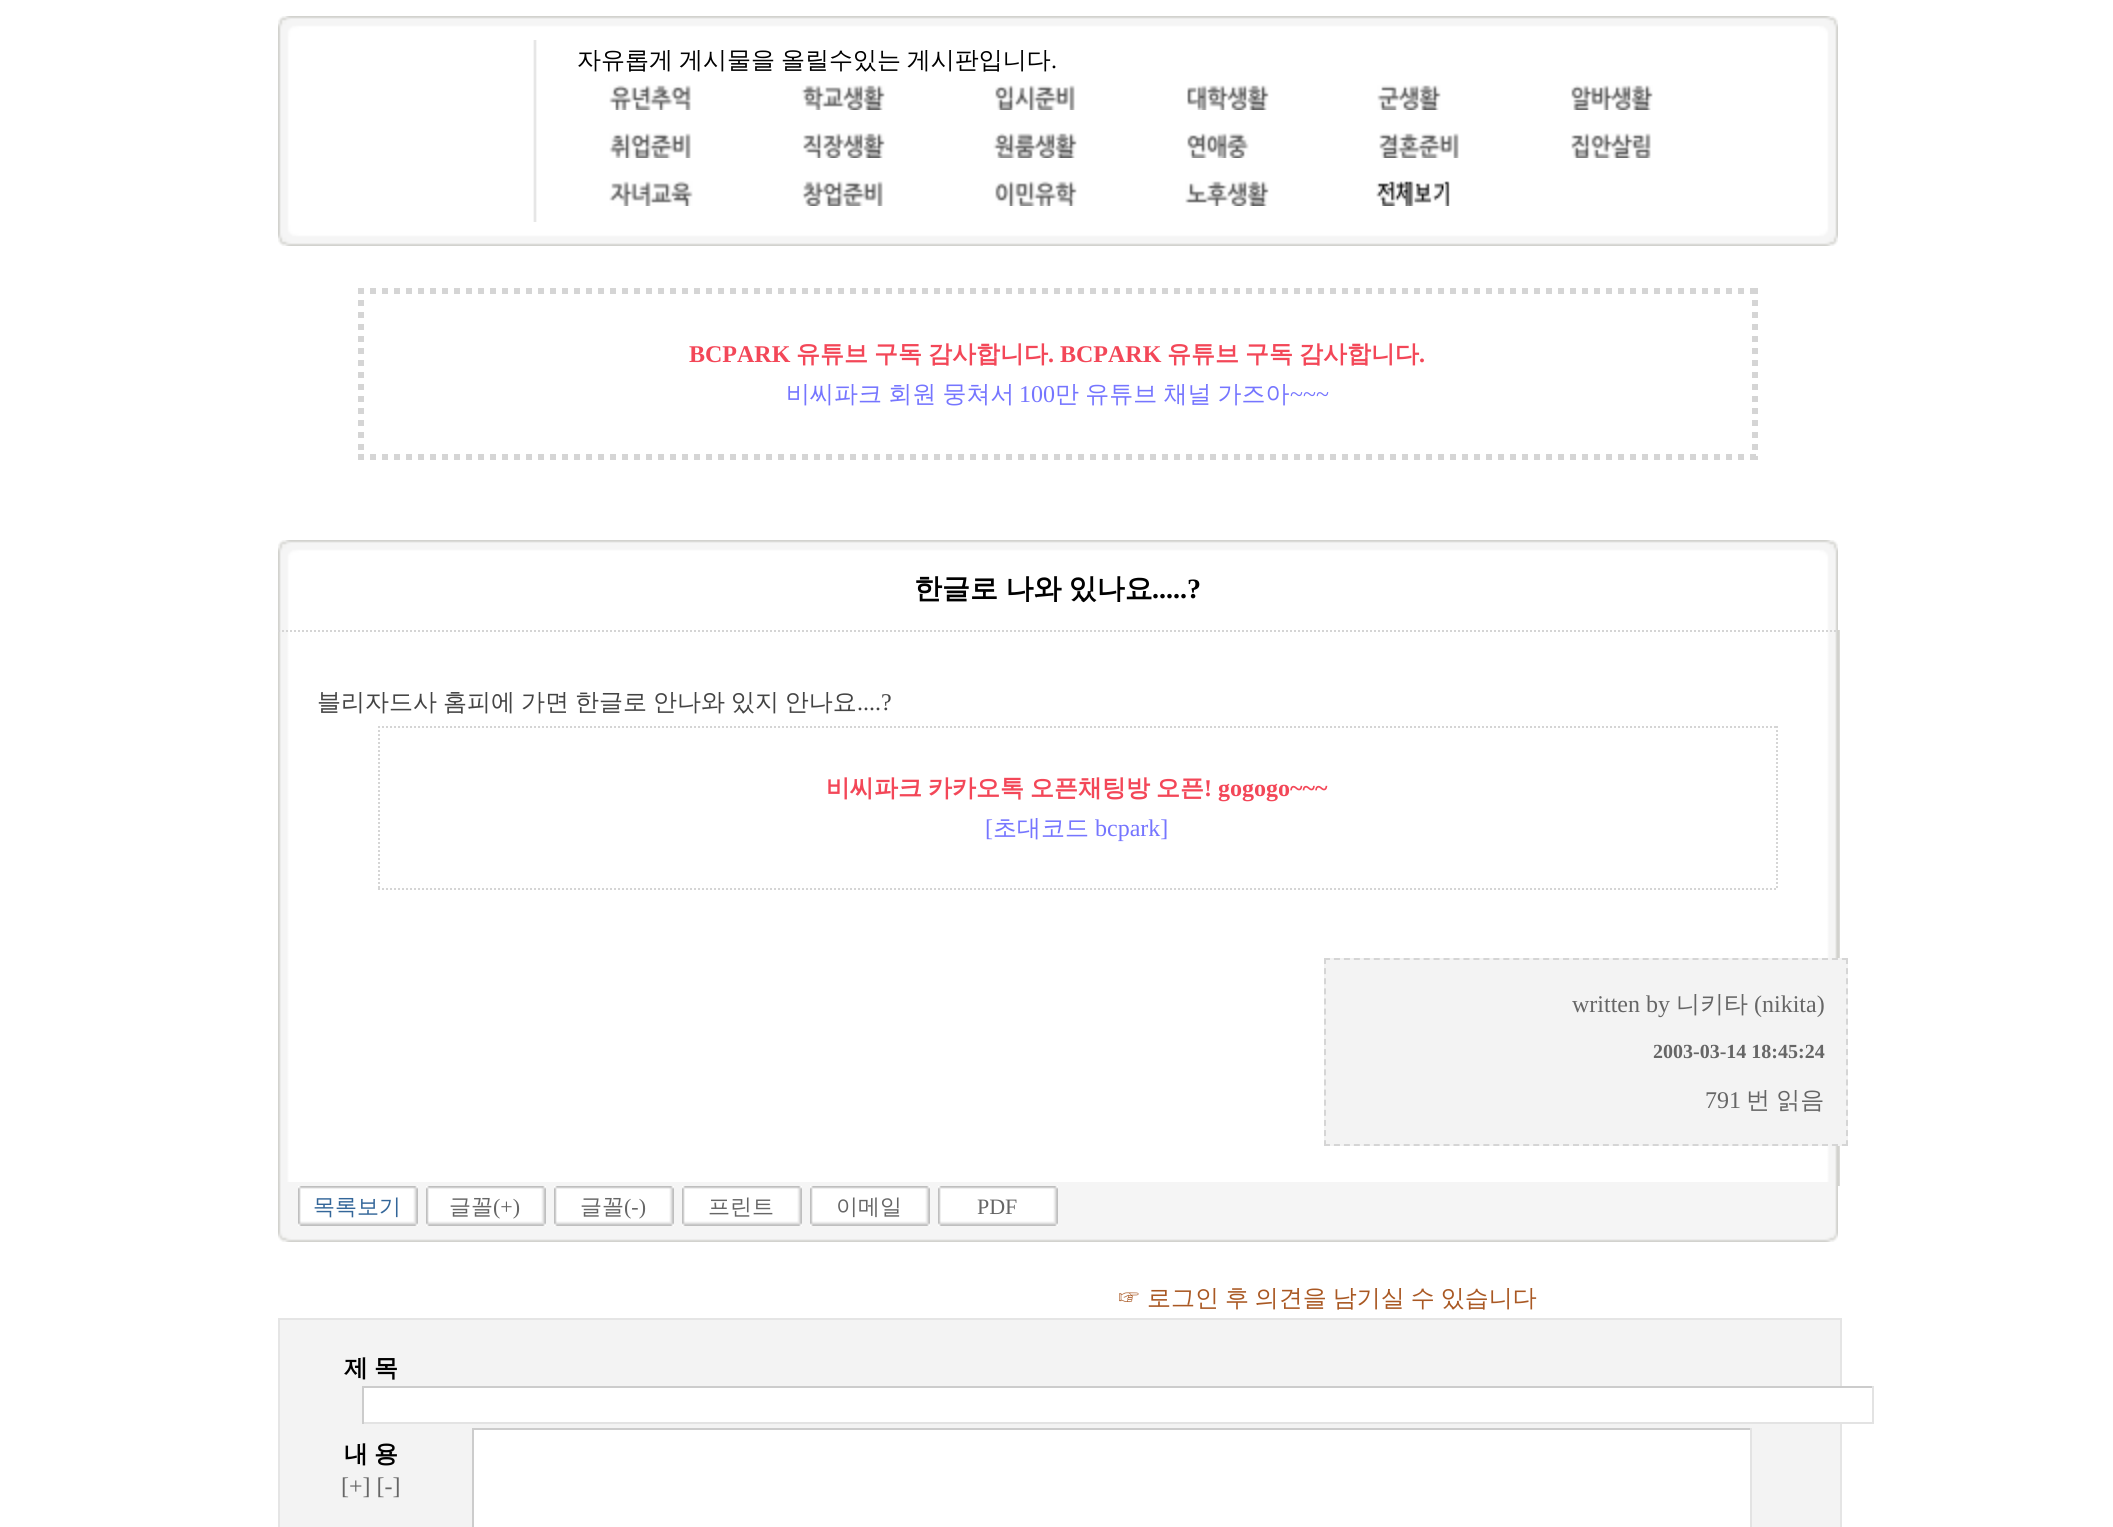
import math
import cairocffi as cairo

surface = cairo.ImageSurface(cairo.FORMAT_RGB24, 2113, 1527)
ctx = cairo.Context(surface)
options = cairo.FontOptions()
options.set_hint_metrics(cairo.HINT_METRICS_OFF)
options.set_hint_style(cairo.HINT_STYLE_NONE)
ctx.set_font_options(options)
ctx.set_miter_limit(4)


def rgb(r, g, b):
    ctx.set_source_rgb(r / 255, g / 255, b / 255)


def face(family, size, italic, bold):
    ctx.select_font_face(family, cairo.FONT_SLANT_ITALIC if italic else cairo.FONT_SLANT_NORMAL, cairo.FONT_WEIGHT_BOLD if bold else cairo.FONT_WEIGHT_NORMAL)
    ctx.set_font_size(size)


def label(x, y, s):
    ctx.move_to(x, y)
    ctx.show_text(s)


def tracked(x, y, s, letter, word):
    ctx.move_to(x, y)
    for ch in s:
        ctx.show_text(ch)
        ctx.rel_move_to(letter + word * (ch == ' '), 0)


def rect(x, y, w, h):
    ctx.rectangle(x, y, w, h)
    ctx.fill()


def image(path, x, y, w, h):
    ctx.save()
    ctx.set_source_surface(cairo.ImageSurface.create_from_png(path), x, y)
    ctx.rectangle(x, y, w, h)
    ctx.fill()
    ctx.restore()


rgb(255, 255, 255)
ctx.paint()
image('image0.png', 278, 40, 1560, 182)
image('image1.png', 278, 16, 1560, 24)
face('WenQuanYi Zen Hei Medium', 24, 0, 0)
rgb(0, 0, 0)
tracked(577, 68, '자유롭게 게시물을 올릴수있는 게시판입니다', 0, -1.25)
face('Liberation Serif', 24, 0, 0)
label(1051, 68, '.')
image('image2.png', 609, 85, 82, 25)
image('image3.png', 801, 85, 84, 25)
image('image4.png', 995, 85, 80, 25)
image('image5.png', 1187, 85, 82, 25)
image('image6.png', 1377, 85, 64, 25)
image('image7.png', 1571, 85, 82, 25)
image('image8.png', 609, 133, 82, 25)
image('image9.png', 803, 133, 82, 25)
image('image10.png', 993, 133, 84, 25)
image('image11.png', 1187, 133, 62, 25)
image('image12.png', 1379, 133, 80, 25)
image('image13.png', 1571, 133, 80, 25)
image('image14.png', 609, 181, 84, 25)
image('image15.png', 802, 181, 81, 25)
image('image16.png', 995, 181, 82, 25)
image('image17.png', 1185, 181, 84, 25)
image('image18.png', 1376, 181, 74, 25)
image('image19.png', 278, 222, 1560, 24)
ctx.new_path()
ctx.move_to(358, 291)
ctx.line_to(1758, 291)
rgb(213, 213, 213)
ctx.set_line_width(6)
ctx.set_dash([6, 6])
ctx.stroke()
ctx.new_path()
ctx.move_to(1755, 288)
ctx.line_to(1755, 460)
ctx.stroke()
ctx.new_path()
ctx.move_to(358, 457)
ctx.line_to(1758, 457)
ctx.stroke()
ctx.new_path()
ctx.move_to(361, 288)
ctx.line_to(361, 460)
ctx.stroke()
face('Liberation Serif', 24, 0, 1)
rgb(243, 71, 88)
label(689, 362, 'BCPARK')
face('WenQuanYi Zen Hei', 24, 0, 1)
label(796, 362, '유튜브')
label(874, 362, '구독')
label(928, 362, '감사합니다')
face('Liberation Serif', 24, 0, 1)
label(1048, 362, '. BCPARK')
face('WenQuanYi Zen Hei', 24, 0, 1)
label(1167, 362, '유튜브')
label(1245, 362, '구독')
label(1299, 362, '감사합니다')
face('Liberation Serif', 24, 0, 1)
label(1419, 362, '.')
face('WenQuanYi Zen Hei Medium', 24, 0, 0)
rgb(117, 117, 255)
tracked(786, 402, '비씨파크 회원 뭉쳐서', 0, -1)
face('Liberation Serif', 24, 0, 0)
label(1019, 402, '100')
face('WenQuanYi Zen Hei Medium', 24, 0, 0)
tracked(1055, 402, '만 유튜브 채널 가즈아', 0, -1)
face('Liberation Serif', 24, 0, 0)
label(1290, 402, '~~~')
image('image20.png', 278, 540, 1560, 20)
image('image21.png', 278, 560, 1560, 70)
image('image22.png', 278, 630, 1562, 556)
ctx.new_path()
ctx.move_to(278, 631)
ctx.line_to(1838, 631)
rgb(213, 213, 213)
ctx.set_line_width(2)
ctx.set_dash([2, 2])
ctx.stroke()
face('WenQuanYi Zen Hei', 28, 0, 1)
rgb(0, 0, 0)
tracked(914, 598, '한글로 나와 있나요', 0, -1)
face('Liberation Serif', 28, 0, 1)
label(1152, 598, '.....?')
face('WenQuanYi Zen Hei Medium', 24, 0, 0)
rgb(68, 68, 68)
tracked(317, 710, '블리자드사 홈피에 가면', 0, -1.25)
tracked(575, 710, '한글로 안나와 있지 안나요', 0, -1.25)
face('Liberation Serif', 24, 0, 0)
label(857, 710, '....?')
ctx.new_path()
ctx.move_to(378, 727)
ctx.line_to(1778, 727)
rgb(213, 213, 213)
ctx.stroke()
ctx.new_path()
ctx.move_to(1777, 726)
ctx.line_to(1777, 890)
ctx.stroke()
ctx.new_path()
ctx.move_to(378, 889)
ctx.line_to(1778, 889)
ctx.stroke()
ctx.new_path()
ctx.move_to(379, 726)
ctx.line_to(379, 890)
ctx.stroke()
face('WenQuanYi Zen Hei', 24, 0, 1)
rgb(243, 71, 88)
label(826, 796, '비씨파크')
label(928, 796, '카카오톡')
label(1030, 796, '오픈채팅방')
label(1156, 796, '오픈')
face('Liberation Serif', 24, 0, 1)
label(1204, 796, '! gogogo~~~')
face('Liberation Serif', 24, 0, 0)
rgb(117, 117, 255)
label(985, 836, '[')
face('WenQuanYi Zen Hei Medium', 24, 0, 0)
label(993, 836, '초대코드')
face('Liberation Serif', 24, 0, 0)
label(1095, 836, 'bcpark]')
rgb(243, 243, 243)
rect(1324, 958, 524, 188)
ctx.new_path()
ctx.move_to(1324, 959)
ctx.line_to(1848, 959)
rgb(213, 213, 213)
ctx.set_dash([6, 3.96])
ctx.stroke()
ctx.new_path()
ctx.move_to(1847, 958)
ctx.line_to(1847, 1146)
ctx.set_dash([6, 4.12])
ctx.stroke()
ctx.new_path()
ctx.move_to(1324, 1145)
ctx.line_to(1848, 1145)
ctx.set_dash([6, 3.96])
ctx.stroke()
ctx.new_path()
ctx.move_to(1325, 958)
ctx.line_to(1325, 1146)
ctx.set_dash([6, 4.12])
ctx.stroke()
rgb(102, 102, 102)
label(1572, 1012, 'written by')
face('WenQuanYi Zen Hei Medium', 24, 0, 0)
label(1676, 1012, '니키타')
face('Liberation Serif', 24, 0, 0)
label(1754, 1012, '(nikita)')
face('Liberation Serif', 20, 0, 1)
label(1653, 1058, '2003-03-14 18:45:24')
face('Liberation Serif', 24, 0, 0)
label(1705, 1108, '791')
face('WenQuanYi Zen Hei Medium', 24, 0, 0)
tracked(1746, 1108, '번 읽음', 0, -1)
image('image23.png', 278, 1182, 1560, 60)
image('image24.png', 298, 1186, 120, 40)
face('WenQuanYi Zen Hei Medium', 22, 0, 0)
rgb(51, 102, 153)
label(313, 1214, '목록보기')
image('image24.png', 426, 1186, 120, 40)
rgb(102, 102, 102)
label(449, 1214, '글꼴')
face('Liberation Serif', 22, 0, 0)
label(493, 1214, '(+)')
image('image24.png', 554, 1186, 120, 40)
face('WenQuanYi Zen Hei Medium', 22, 0, 0)
label(580, 1214, '글꼴')
face('Liberation Serif', 22, 0, 0)
label(624, 1214, '(-)')
image('image24.png', 682, 1186, 120, 40)
face('WenQuanYi Zen Hei Medium', 22, 0, 0)
label(708, 1214, '프린트')
image('image24.png', 810, 1186, 120, 40)
label(836, 1214, '이메일')
image('image24.png', 938, 1186, 120, 40)
face('Liberation Serif', 22, 0, 0)
label(977, 1214, 'PDF')
face('WenQuanYi Zen Hei Medium', 24, 0, 0)
rgb(169, 88, 35)
tracked(1117, 1306, '☞ 로그인 후 의견을 남기실 수 있습니다', 0, -1.25)
rgb(243, 243, 243)
ctx.rectangle(279, 1319, 1562, 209)
ctx.fill_preserve()
rgb(229, 229, 229)
ctx.set_dash([])
ctx.stroke()
face('WenQuanYi Zen Hei', 24, 0, 1)
rgb(0, 0, 0)
label(344, 1376, '제')
label(374, 1376, '목')
rgb(255, 255, 255)
rect(364, 1388, 1478, 34)
rgb(204, 204, 204)
rect(362, 1386, 1512, 2)
rgb(227, 227, 227)
rect(1872, 1386, 2, 38)
rect(362, 1422, 1512, 2)
rgb(204, 204, 204)
rect(362, 1386, 2, 38)
rgb(0, 0, 0)
label(344, 1462, '내')
label(374, 1462, '용')
face('Liberation Serif', 24, 0, 0)
rgb(102, 102, 102)
label(341, 1494, '[+] [-]')
rgb(255, 255, 255)
rect(474, 1430, 1276, 97)
rgb(204, 204, 204)
rect(472, 1428, 1280, 2)
rgb(227, 227, 227)
rect(1750, 1428, 2, 99)
rgb(204, 204, 204)
rect(472, 1428, 2, 99)
surface.write_to_png('render.png')
